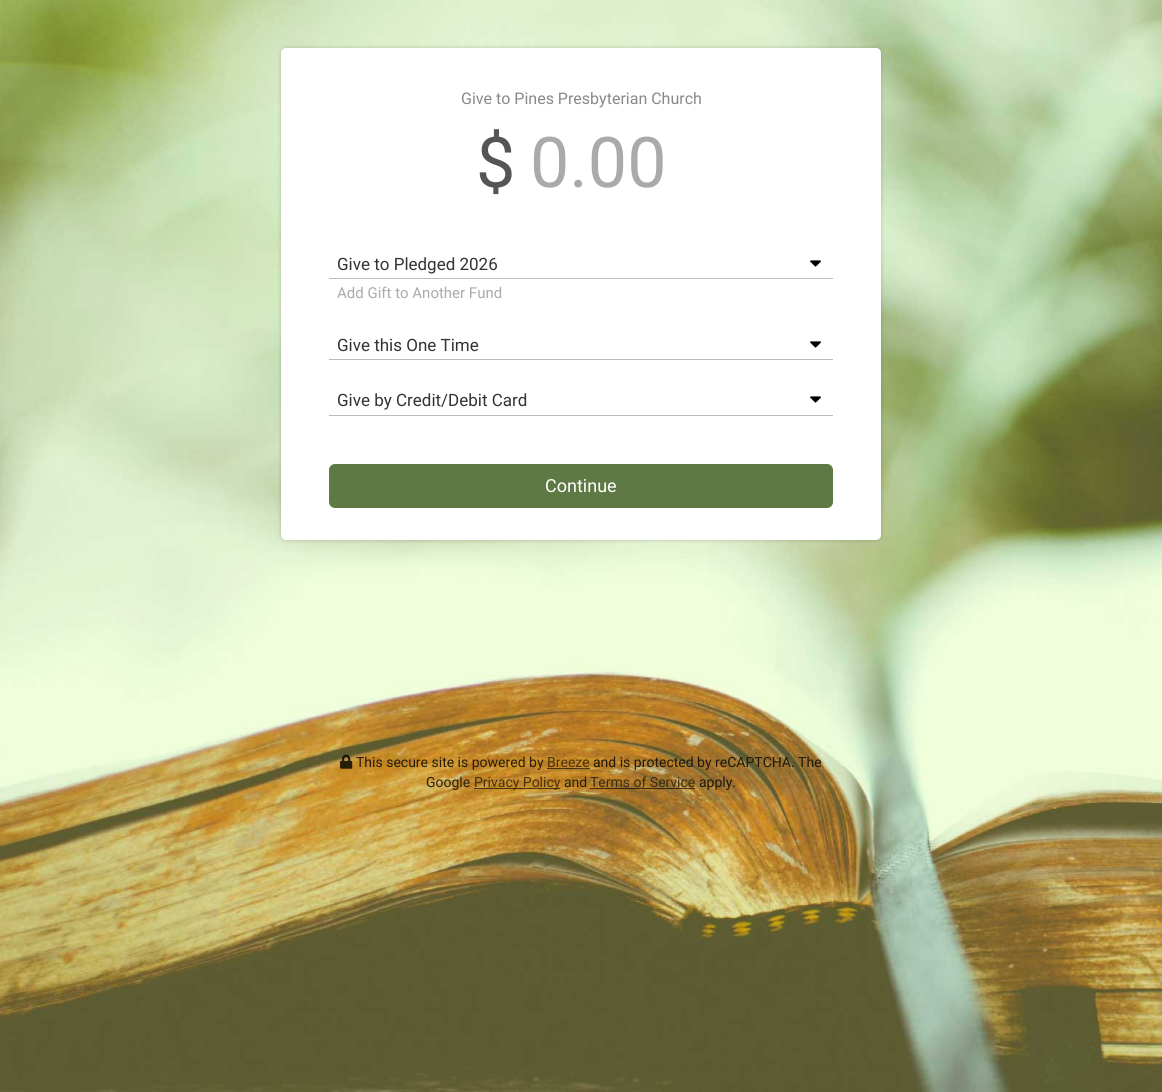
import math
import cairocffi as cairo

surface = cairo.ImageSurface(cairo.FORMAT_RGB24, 1162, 1092)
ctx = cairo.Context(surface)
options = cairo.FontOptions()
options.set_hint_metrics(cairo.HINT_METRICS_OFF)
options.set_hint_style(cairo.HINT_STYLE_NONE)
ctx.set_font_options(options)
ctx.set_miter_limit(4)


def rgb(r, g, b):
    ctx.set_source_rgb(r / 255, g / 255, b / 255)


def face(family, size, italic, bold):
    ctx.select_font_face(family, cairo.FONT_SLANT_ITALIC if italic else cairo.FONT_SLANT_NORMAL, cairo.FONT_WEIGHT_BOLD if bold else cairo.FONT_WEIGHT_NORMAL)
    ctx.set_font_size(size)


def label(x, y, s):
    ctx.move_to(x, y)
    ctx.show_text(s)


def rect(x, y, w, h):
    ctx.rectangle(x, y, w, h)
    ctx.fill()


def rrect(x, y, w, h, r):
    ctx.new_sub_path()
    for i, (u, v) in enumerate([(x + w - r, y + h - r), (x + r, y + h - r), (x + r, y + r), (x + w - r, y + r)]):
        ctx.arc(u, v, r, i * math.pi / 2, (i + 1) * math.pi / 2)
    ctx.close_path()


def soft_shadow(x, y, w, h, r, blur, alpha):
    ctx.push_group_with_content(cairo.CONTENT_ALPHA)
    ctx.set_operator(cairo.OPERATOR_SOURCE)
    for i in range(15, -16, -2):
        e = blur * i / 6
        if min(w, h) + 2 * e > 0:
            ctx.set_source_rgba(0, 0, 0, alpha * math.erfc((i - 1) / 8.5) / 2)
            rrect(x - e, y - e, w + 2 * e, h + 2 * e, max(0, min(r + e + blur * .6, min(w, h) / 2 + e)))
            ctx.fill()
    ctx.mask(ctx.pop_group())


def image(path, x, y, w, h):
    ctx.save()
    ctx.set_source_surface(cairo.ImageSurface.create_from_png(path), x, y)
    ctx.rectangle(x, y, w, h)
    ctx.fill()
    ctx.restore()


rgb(255, 255, 255)
ctx.paint()
image('image0.png', 0, 0, 1162, 1092)
rgb(0, 0, 0)
soft_shadow(281, 48, 600, 492, 5, 2, 0.2)
rgb(255, 255, 255)
rrect(281, 48, 600, 492, 5)
ctx.fill()
face('Roboto', 16, 0, 0)
rgb(136, 136, 136)
label(461, 104, 'Give to Pines Presbyterian Church')
face('Roboto', 70, 0, 0)
rgb(85, 85, 85)
label(476, 187, '$')
rgb(170, 170, 170)
label(530, 187, '0.00')
image('image1.png', 810, 260, 11, 7)
face('Roboto', 17, 0, 0)
rgb(51, 51, 51)
label(337, 270, 'Give to Pledged 2026')
rgb(187, 187, 187)
rect(329, 278, 504, 1)
face('Roboto', 15, 0, 0)
rgb(170, 170, 170)
label(337, 298, 'Add Gift to Another Fund')
image('image1.png', 810, 341, 11, 7)
face('Roboto', 17, 0, 0)
rgb(51, 51, 51)
label(337, 351, 'Give this One Time')
rgb(187, 187, 187)
rect(329, 359, 504, 1)
image('image1.png', 810, 396, 11, 7)
rgb(51, 51, 51)
label(337, 406, 'Give by Credit/Debit Card')
rgb(187, 187, 187)
rect(329, 415, 504, 1)
rgb(95, 121, 69)
rrect(329, 464, 504, 44, 6)
ctx.fill()
face('Roboto', 18, 0, 0)
rgb(255, 255, 255)
label(545, 492, 'Continue')
image('image2.png', 340, 754, 13, 15)
face('Roboto', 14, 0, 0)
rgb(40, 28, 8)
label(356, 767, 'This secure site is powered by')
rgb(71, 49, 13)
label(547, 767, 'Breeze')
ctx.set_source_rgba(0, 0, 0, 0.64)
rect(547, 768, 43, 1)
rgb(32, 24, 10)
label(593, 767, 'and is protected by reCAPTCHA. The')
rgb(41, 32, 14)
label(426, 787, 'Google')
ctx.set_source_rgba(0, 0, 0, 0.64)
rect(474, 788, 86, 1)
rgb(71, 49, 13)
label(474, 787, 'Privacy Policy')
rgb(40, 28, 8)
label(564, 787, 'and')
rgb(60, 43, 17)
label(590, 787, 'Terms of Service')
ctx.set_source_rgba(0, 0, 0, 0.64)
rect(590, 788, 105, 1)
rgb(32, 24, 10)
label(699, 787, 'apply.')
surface.write_to_png('render.png')
